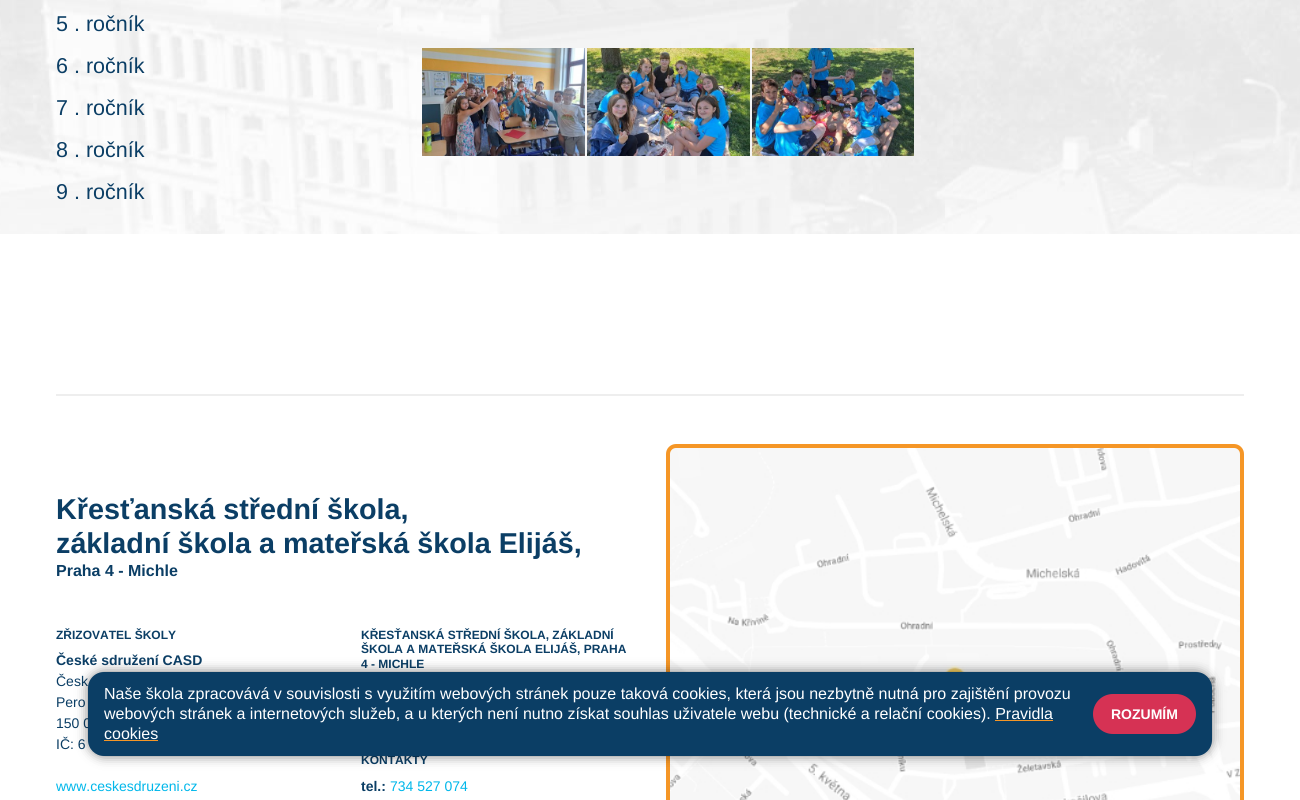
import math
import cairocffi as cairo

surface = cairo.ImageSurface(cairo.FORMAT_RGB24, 1300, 800)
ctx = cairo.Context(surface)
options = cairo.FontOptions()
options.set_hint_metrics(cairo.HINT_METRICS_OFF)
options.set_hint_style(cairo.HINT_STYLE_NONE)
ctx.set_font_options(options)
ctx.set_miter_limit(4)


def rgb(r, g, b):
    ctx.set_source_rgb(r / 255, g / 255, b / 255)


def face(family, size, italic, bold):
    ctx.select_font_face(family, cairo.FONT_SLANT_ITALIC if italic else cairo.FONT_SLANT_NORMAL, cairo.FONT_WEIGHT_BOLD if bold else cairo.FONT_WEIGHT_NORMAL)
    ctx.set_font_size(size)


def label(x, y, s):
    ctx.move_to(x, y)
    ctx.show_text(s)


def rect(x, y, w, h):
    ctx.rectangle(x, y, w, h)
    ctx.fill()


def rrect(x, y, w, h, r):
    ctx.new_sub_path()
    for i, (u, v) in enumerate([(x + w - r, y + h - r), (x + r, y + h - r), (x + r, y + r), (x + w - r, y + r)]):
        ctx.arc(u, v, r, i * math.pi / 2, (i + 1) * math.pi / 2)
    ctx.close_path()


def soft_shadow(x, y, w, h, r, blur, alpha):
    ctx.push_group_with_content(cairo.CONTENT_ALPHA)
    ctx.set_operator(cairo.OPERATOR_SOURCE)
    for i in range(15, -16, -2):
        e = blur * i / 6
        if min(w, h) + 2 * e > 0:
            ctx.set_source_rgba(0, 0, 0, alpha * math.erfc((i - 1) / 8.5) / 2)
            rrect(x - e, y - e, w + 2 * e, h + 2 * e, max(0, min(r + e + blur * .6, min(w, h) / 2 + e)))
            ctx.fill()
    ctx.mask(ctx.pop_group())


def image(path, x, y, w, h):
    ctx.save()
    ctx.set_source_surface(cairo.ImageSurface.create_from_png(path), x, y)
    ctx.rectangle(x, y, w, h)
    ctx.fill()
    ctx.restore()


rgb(255, 255, 255)
ctx.paint()
image('image0.png', 0, 0, 1300, 234)
face('Liberation Sans', 21.5, 0, 0)
rgb(11, 62, 101)
label(56, 31, '5 . ročník')
label(56, 73, '6 . ročník')
label(56, 115, '7 . ročník')
label(56, 157, '8 . ročník')
label(56, 199, '9 . ročník')
image('image1.png', 422, 48, 163, 108)
image('image2.png', 587, 48, 163, 108)
image('image3.png', 752, 48, 162, 108)
rgb(238, 238, 238)
rect(56, 394, 1188, 2)
face('Liberation Sans', 28.75, 0, 1)
rgb(11, 62, 101)
label(56, 519, 'Křesťanská střední škola,')
label(56, 553, 'základní škola a mateřská škola Elijáš,')
face('Liberation Sans', 16, 0, 1)
label(56, 576, 'Praha 4 - Michle')
face('Liberation Sans', 12, 0, 1)
label(56, 639, 'ZŘIZOVATEL ŠKOLY')
face('Liberation Sans', 14, 0, 1)
label(56, 665, 'České sdružení CASD')
face('Liberation Sans', 14, 0, 0)
label(56, 686, 'Česk')
label(56, 707, 'Pero')
label(56, 728, '150 0')
label(56, 749, 'IČ: 6')
rgb(0, 183, 234)
label(56, 791, 'www.ceskesdruzeni.cz')
face('Liberation Sans', 12, 0, 1)
rgb(11, 62, 101)
label(361, 639, 'KŘESŤANSKÁ STŘEDNÍ ŠKOLA, ZÁKLADNÍ')
label(361, 653, 'ŠKOLA A MATEŘSKÁ ŠKOLA ELIJÁŠ, PRAHA')
label(361, 668, '4 - MICHLE')
label(361, 764, 'KONTAKTY')
face('Liberation Sans', 14, 0, 1)
label(361, 791, 'tel.:')
face('Liberation Sans', 14, 0, 0)
rgb(0, 183, 234)
label(390, 791, '734 527 074')
image('image4.png', 666, 448, 578, 352)
rrect(668, 446, 574, 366, 8)
rgb(245, 150, 38)
ctx.set_line_width(4)
ctx.stroke()
rgb(0, 0, 0)
soft_shadow(88, 672, 1124, 84, 16, 6, 0.5)
rgb(11, 62, 101)
rrect(88, 672, 1124, 84, 16)
ctx.fill()
face('Liberation Sans', 16, 0, 0)
rgb(255, 255, 255)
label(104, 699, 'Naše škola zpracovává v souvislosti s využitím webových stránek pouze taková cookies, která jsou nezbytně nutná pro zajištění provozu')
label(104, 719, 'webových stránek a internetových služeb, a u kterých není nutno získat souhlas uživatele webu (technické a relační cookies). Pravidla')
label(104, 739, 'cookies')
rgb(245, 150, 38)
rect(995, 720, 58, 1)
rect(104, 740, 54, 1)
rgb(214, 50, 84)
rrect(1093, 694, 103, 40, 20)
ctx.fill()
face('Liberation Sans', 14, 0, 1)
rgb(255, 255, 255)
label(1111, 719, 'ROZUMÍM')
surface.write_to_png('render.png')
